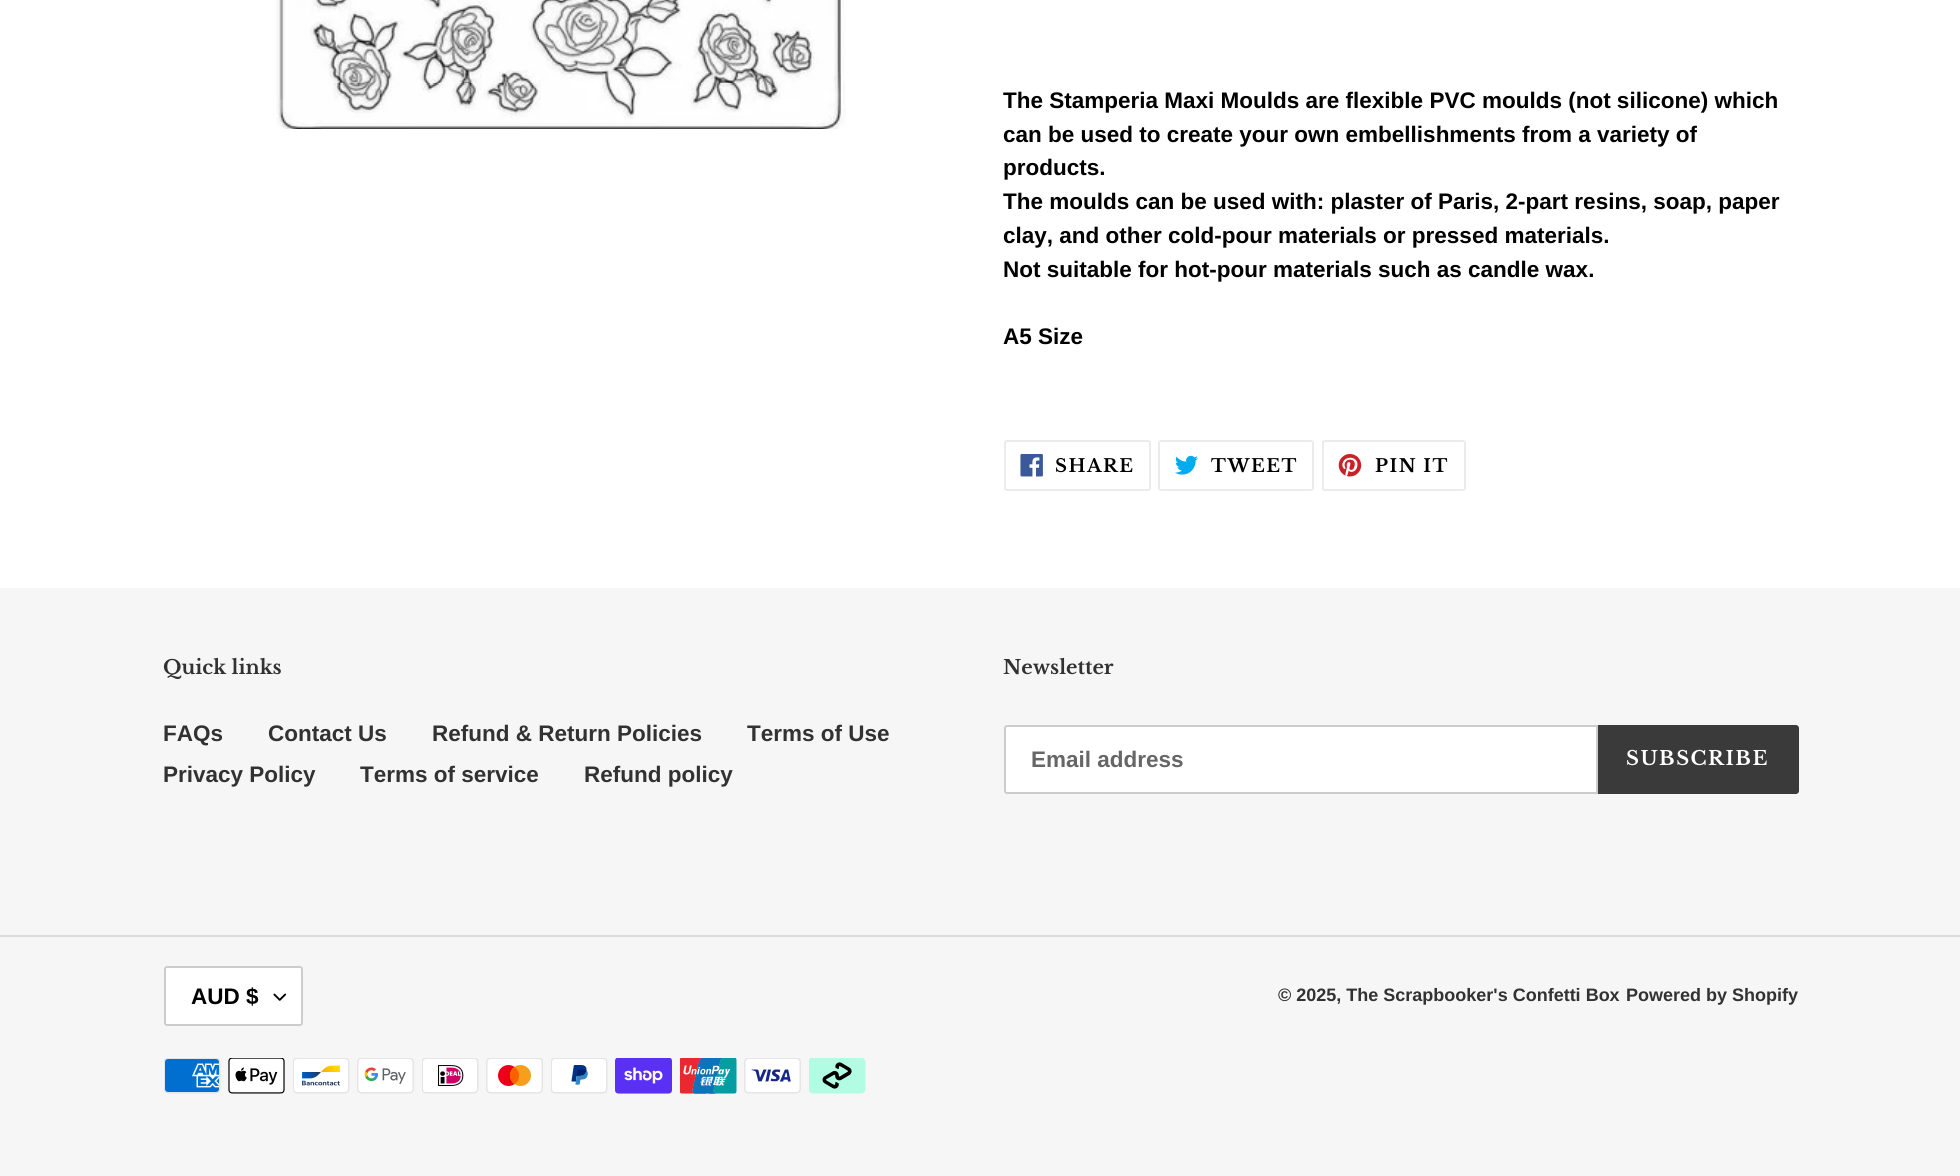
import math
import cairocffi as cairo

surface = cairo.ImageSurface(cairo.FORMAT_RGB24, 1960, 1176)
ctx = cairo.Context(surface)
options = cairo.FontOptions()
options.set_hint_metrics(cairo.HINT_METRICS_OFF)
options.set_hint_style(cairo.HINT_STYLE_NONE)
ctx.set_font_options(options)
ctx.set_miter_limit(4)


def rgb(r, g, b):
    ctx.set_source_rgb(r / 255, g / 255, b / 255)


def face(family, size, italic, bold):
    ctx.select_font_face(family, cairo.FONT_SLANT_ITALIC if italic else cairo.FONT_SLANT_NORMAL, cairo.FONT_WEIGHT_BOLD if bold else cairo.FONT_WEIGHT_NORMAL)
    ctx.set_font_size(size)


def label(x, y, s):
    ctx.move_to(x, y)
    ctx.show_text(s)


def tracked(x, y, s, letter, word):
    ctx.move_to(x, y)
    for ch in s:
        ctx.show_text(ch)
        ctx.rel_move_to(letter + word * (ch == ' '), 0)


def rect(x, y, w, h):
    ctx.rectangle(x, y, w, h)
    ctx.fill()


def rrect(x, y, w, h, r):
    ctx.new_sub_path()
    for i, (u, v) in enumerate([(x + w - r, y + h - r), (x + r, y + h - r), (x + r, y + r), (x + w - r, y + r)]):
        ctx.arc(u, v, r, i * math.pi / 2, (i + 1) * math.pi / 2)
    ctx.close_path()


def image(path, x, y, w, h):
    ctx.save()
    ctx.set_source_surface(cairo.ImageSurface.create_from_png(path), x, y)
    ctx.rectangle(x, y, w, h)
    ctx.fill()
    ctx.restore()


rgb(255, 255, 255)
ctx.paint()
image('image0.png', 276, 0, 570, 129)
face('Liberation Sans', 22.5, 0, 1)
rgb(0, 0, 0)
label(1003, 108, 'The Stamperia Maxi Moulds are flexible PVC moulds (not silicone) which')
label(1003, 142, 'can be used to create your own embellishments from a variety of')
label(1003, 175, 'products.')
label(1003, 209, 'The moulds can be used with: plaster of Paris, 2-part resins, soap, paper')
label(1003, 243, 'clay, and other cold-pour materials or pressed materials.')
label(1003, 277, 'Not suitable for hot-pour materials such as candle wax.')
label(1003, 344, 'A5 Size')
rrect(1005, 441, 145, 49, 2)
rgb(235, 235, 235)
ctx.stroke()
image('image1.png', 1020, 454, 23, 23)
face('Libre Baskerville', 18, 0, 1)
rgb(0, 0, 0)
tracked(1055, 472, 'SHARE', 1.5, 0)
rrect(1159, 441, 154, 49, 2)
rgb(235, 235, 235)
ctx.stroke()
image('image2.png', 1175, 455, 23, 20)
rgb(0, 0, 0)
tracked(1211, 472, 'TWEET', 1.5, 0)
rrect(1323, 441, 142, 49, 2)
rgb(235, 235, 235)
ctx.stroke()
image('image3.png', 1338, 454, 24, 23)
rgb(0, 0, 0)
tracked(1375, 472, 'PIN IT', 1.5, 0)
rgb(246, 246, 246)
rect(0, 588, 1960, 588)
face('Libre Baskerville', 19.5, 0, 1)
rgb(51, 50, 50)
label(163, 674, 'Quick links')
face('Liberation Sans', 22.5, 0, 1)
label(163, 741, 'FAQs')
label(268, 741, 'Contact Us')
label(432, 741, 'Refund & Return Policies')
label(747, 741, 'Terms of Use')
label(163, 782, 'Privacy Policy')
label(360, 782, 'Terms of service')
label(584, 782, 'Refund policy')
face('Libre Baskerville', 19.5, 0, 1)
label(1003, 674, 'Newsletter')
rgb(255, 255, 255)
ctx.new_path()
ctx.move_to(1007, 726)
ctx.line_to(1597, 726)
ctx.line_to(1597, 793)
ctx.line_to(1007, 793)
ctx.curve_to(1006, 793, 1005, 792, 1005, 791)
ctx.line_to(1005, 728)
ctx.curve_to(1005, 727, 1006, 726, 1007, 726)
ctx.close_path()
ctx.fill_preserve()
rgb(204, 204, 204)
ctx.stroke()
face('Liberation Sans', 22.5, 0, 1)
rgb(102, 102, 102)
label(1031, 767, 'Email address')
rgb(58, 58, 58)
ctx.new_path()
ctx.move_to(1598, 725)
ctx.line_to(1796, 725)
ctx.curve_to(1797.5, 725, 1799, 726.5, 1799, 728)
ctx.line_to(1799, 791)
ctx.curve_to(1799, 792.5, 1797.5, 794, 1796, 794)
ctx.line_to(1598, 794)
ctx.close_path()
ctx.fill()
face('Libre Baskerville', 19.5, 0, 1)
rgb(255, 255, 255)
tracked(1626, 765, 'SUBSCRIBE', 1.5, 0)
rgb(221, 221, 221)
rect(0, 935, 1960, 2)
rgb(255, 255, 255)
rrect(164, 966, 139, 60, 3)
ctx.fill()
image('image4.png', 273, 993, 14, 8)
rrect(165, 967, 137, 58, 2)
rgb(204, 204, 204)
ctx.stroke()
face('Liberation Sans', 22.5, 0, 1)
rgb(0, 0, 0)
label(191, 1004, 'AUD $')
face('Liberation Sans', 18, 0, 1)
rgb(51, 50, 50)
label(1278, 1001, '© 2025, The Scrapbooker\'s Confetti Box')
label(1626, 1001, 'Powered by Shopify')
image('image5.png', 164, 1058, 57, 36)
image('image6.png', 228, 1058, 57, 36)
image('image7.png', 293, 1058, 57, 36)
image('image8.png', 357, 1058, 57, 36)
image('image9.png', 422, 1058, 57, 36)
image('image10.png', 486, 1058, 57, 36)
image('image11.png', 551, 1058, 57, 36)
image('image12.png', 615, 1058, 57, 36)
image('image13.png', 680, 1058, 57, 36)
image('image14.png', 744, 1058, 57, 36)
image('image15.png', 809, 1058, 57, 36)
surface.write_to_png('render.png')
